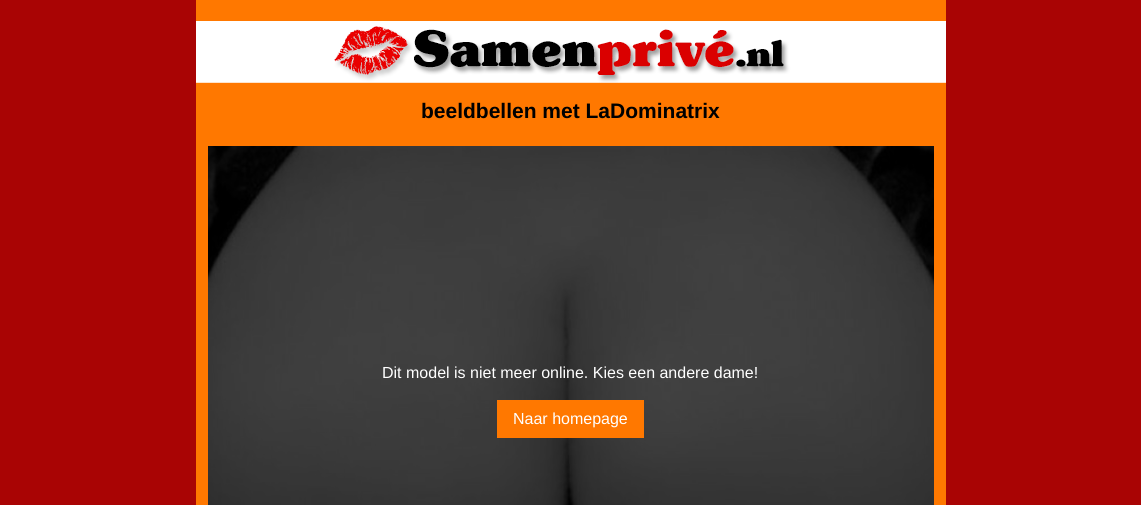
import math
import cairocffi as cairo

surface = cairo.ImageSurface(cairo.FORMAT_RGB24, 1141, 505)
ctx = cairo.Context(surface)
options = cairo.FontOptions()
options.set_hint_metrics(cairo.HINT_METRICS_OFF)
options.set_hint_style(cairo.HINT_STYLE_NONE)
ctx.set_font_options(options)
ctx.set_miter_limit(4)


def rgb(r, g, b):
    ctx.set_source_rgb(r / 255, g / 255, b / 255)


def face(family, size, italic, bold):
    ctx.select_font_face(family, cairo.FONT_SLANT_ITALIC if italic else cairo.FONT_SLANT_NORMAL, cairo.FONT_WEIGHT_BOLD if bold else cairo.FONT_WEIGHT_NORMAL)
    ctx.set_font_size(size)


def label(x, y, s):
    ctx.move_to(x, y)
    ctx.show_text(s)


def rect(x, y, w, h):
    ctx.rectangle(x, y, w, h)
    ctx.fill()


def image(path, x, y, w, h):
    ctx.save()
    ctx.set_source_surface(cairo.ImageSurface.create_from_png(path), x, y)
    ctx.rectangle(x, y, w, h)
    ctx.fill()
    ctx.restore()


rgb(169, 4, 4)
ctx.paint()
rgb(255, 120, 0)
rect(196, 0, 750, 505)
image('image0.png', 196, 21, 750, 62)
face('Liberation Sans', 21, 0, 1)
rgb(0, 0, 0)
label(421, 118, 'beeldbellen met LaDominatrix')
image('image1.png', 208, 146, 726, 359)
face('Liberation Sans', 16, 0, 0)
rgb(255, 255, 255)
label(382, 378, 'Dit model is niet meer online. Kies een andere dame!')
rgb(255, 120, 0)
rect(497, 400, 147, 38)
rgb(255, 255, 255)
label(513, 424, 'Naar homepage')
surface.write_to_png('render.png')
